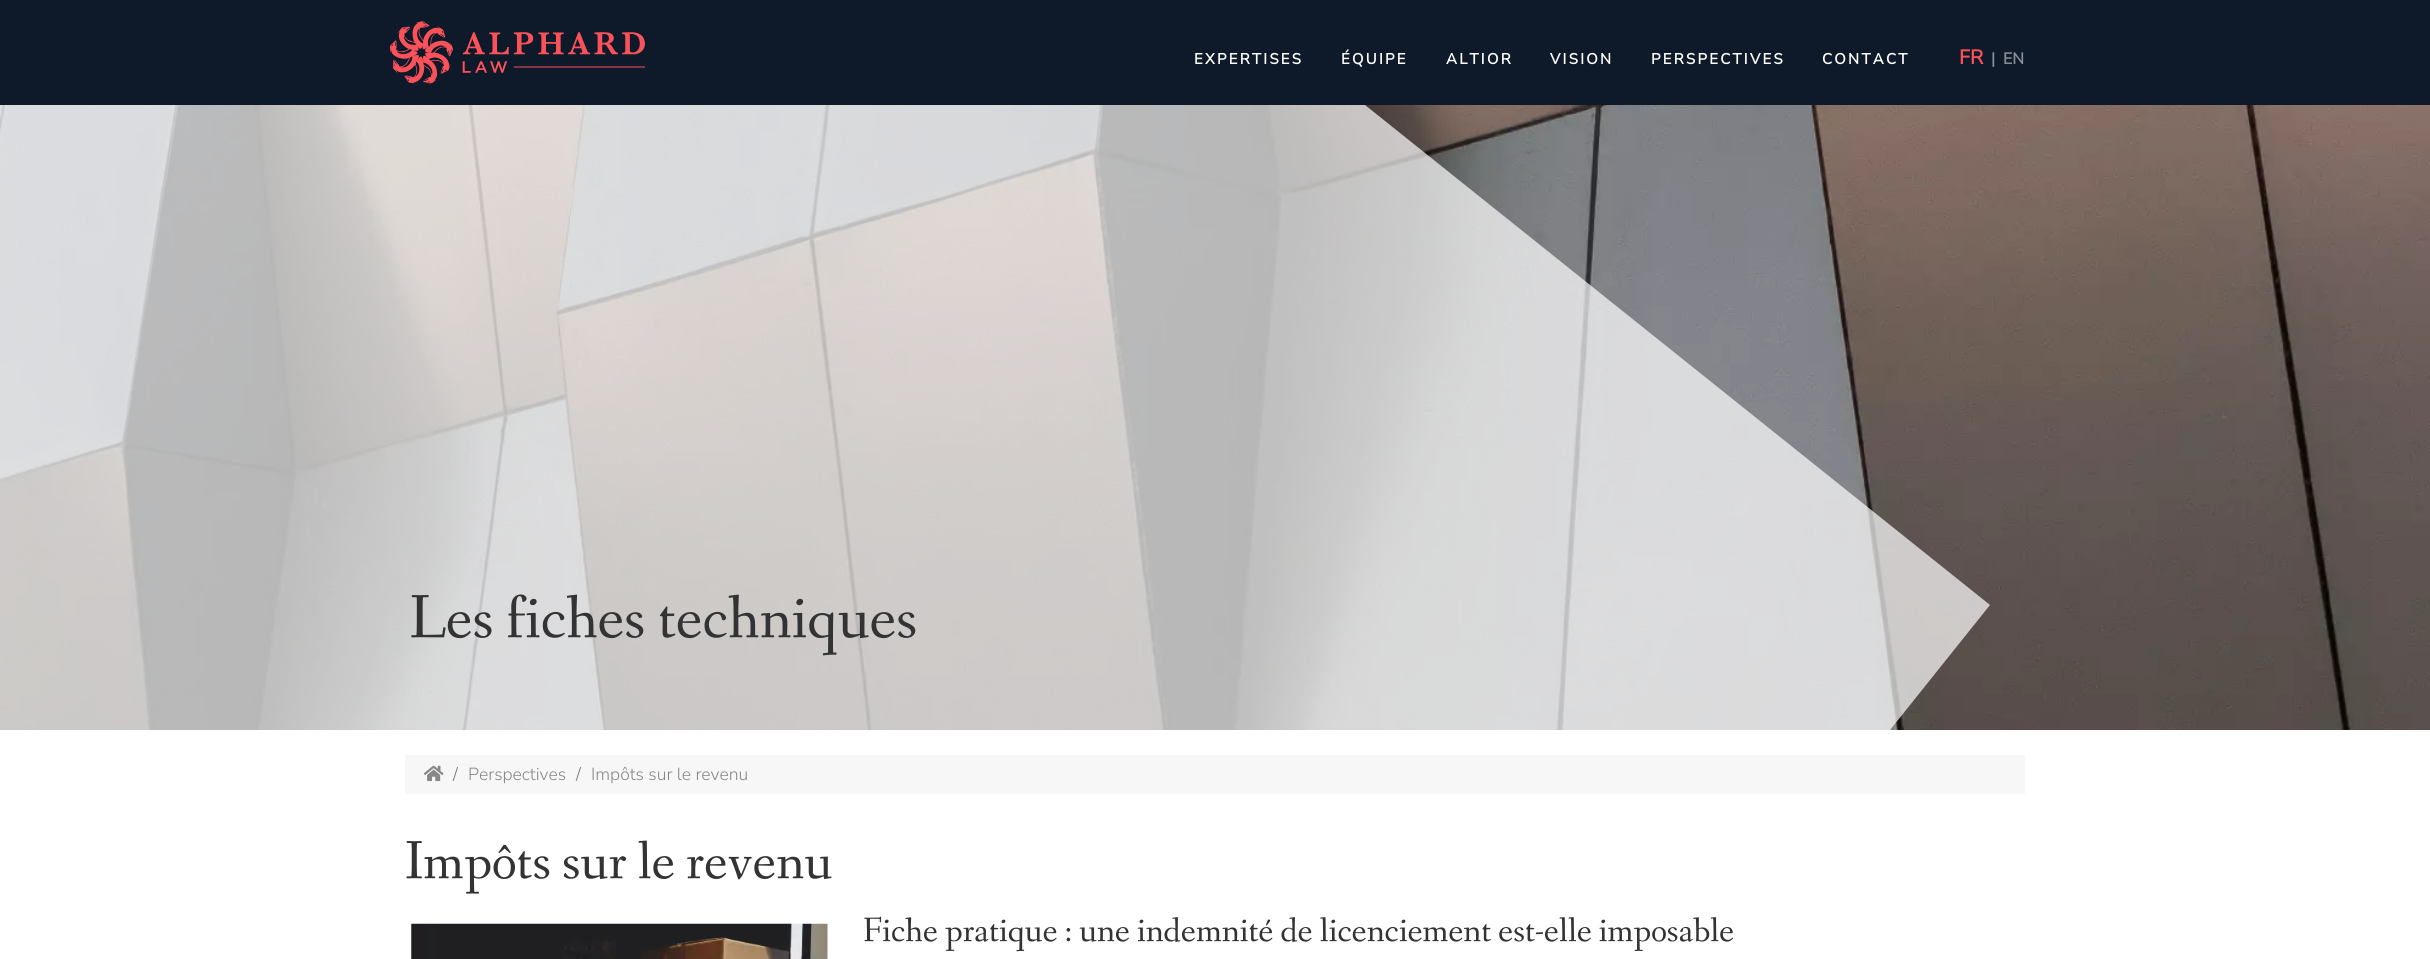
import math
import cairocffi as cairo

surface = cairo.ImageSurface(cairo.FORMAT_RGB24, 2430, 959)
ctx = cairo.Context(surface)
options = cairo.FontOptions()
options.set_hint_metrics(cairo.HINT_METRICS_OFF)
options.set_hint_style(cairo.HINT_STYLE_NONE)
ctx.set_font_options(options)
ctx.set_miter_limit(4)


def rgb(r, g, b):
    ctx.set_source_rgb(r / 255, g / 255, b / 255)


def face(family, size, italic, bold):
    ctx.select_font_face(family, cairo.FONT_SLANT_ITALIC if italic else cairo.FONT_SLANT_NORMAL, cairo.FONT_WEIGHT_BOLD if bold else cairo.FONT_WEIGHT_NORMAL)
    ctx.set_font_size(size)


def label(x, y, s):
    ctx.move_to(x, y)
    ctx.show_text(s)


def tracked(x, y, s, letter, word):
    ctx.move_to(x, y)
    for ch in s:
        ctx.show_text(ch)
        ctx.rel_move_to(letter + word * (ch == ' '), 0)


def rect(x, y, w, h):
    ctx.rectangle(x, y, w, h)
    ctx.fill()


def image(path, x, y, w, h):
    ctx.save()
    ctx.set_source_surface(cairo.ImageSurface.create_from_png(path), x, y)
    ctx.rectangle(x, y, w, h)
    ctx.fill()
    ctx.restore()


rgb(255, 255, 255)
ctx.paint()
rgb(14, 25, 42)
rect(0, 0, 2430, 105)
image('image0.png', 390, 21, 255, 63)
face('Nunito Sans', 15, 0, 1)
rgb(255, 255, 255)
tracked(1194, 64, 'EXPERTISES', 2.25, 0)
tracked(1341, 64, 'ÉQUIPE', 2.25, 0)
tracked(1446, 64, 'ALTIOR', 2.25, 0)
tracked(1550, 64, 'VISION', 2.25, 0)
tracked(1651, 64, 'PERSPECTIVES', 2.25, 0)
tracked(1822, 64, 'CONTACT', 2.25, 0)
face('Nunito Sans', 20, 0, 1)
rgb(251, 82, 90)
label(1959, 64, 'FR')
face('Nunito Sans', 16, 0, 1)
rgb(135, 140, 149)
label(1991, 64, '|')
label(2003, 64, 'EN')
image('image1.png', 0, 105, 2430, 625)
ctx.set_source_rgba(1, 1, 1, 0.7)
ctx.new_path()
ctx.move_to(1990, 605)
ctx.line_to(0, 605)
ctx.line_to(0, 105)
ctx.line_to(1365, 105)
ctx.close_path()
ctx.fill()
ctx.new_path()
ctx.move_to(0, 605)
ctx.line_to(1990, 605)
ctx.line_to(1890, 730)
ctx.line_to(0, 730)
ctx.close_path()
ctx.fill()
face('Fanwood Text', 62.5, 0, 0)
rgb(51, 51, 51)
label(409, 637, 'Les fiches techniques')
rgb(247, 247, 247)
rect(405, 755, 1620, 39)
image('image2.png', 423, 765, 21, 17)
face('Nunito Sans Light', 17.5, 0, 0)
rgb(108, 117, 125)
label(453, 780, '/')
rgb(136, 136, 136)
label(468, 780, 'Perspectives')
rgb(108, 117, 125)
label(576, 780, '/')
rgb(136, 136, 136)
label(591, 780, 'Impôts sur le revenu')
face('Fanwood Text', 55, 0, 0)
rgb(51, 51, 51)
label(405, 878, 'Impôts sur le revenu')
image('image3.png', 411, 923, 417, 36)
face('Fanwood Text', 35, 0, 0)
label(863, 941, 'Fiche pratique : une indemnité de licenciement est-elle imposable')
surface.write_to_png('render.png')
